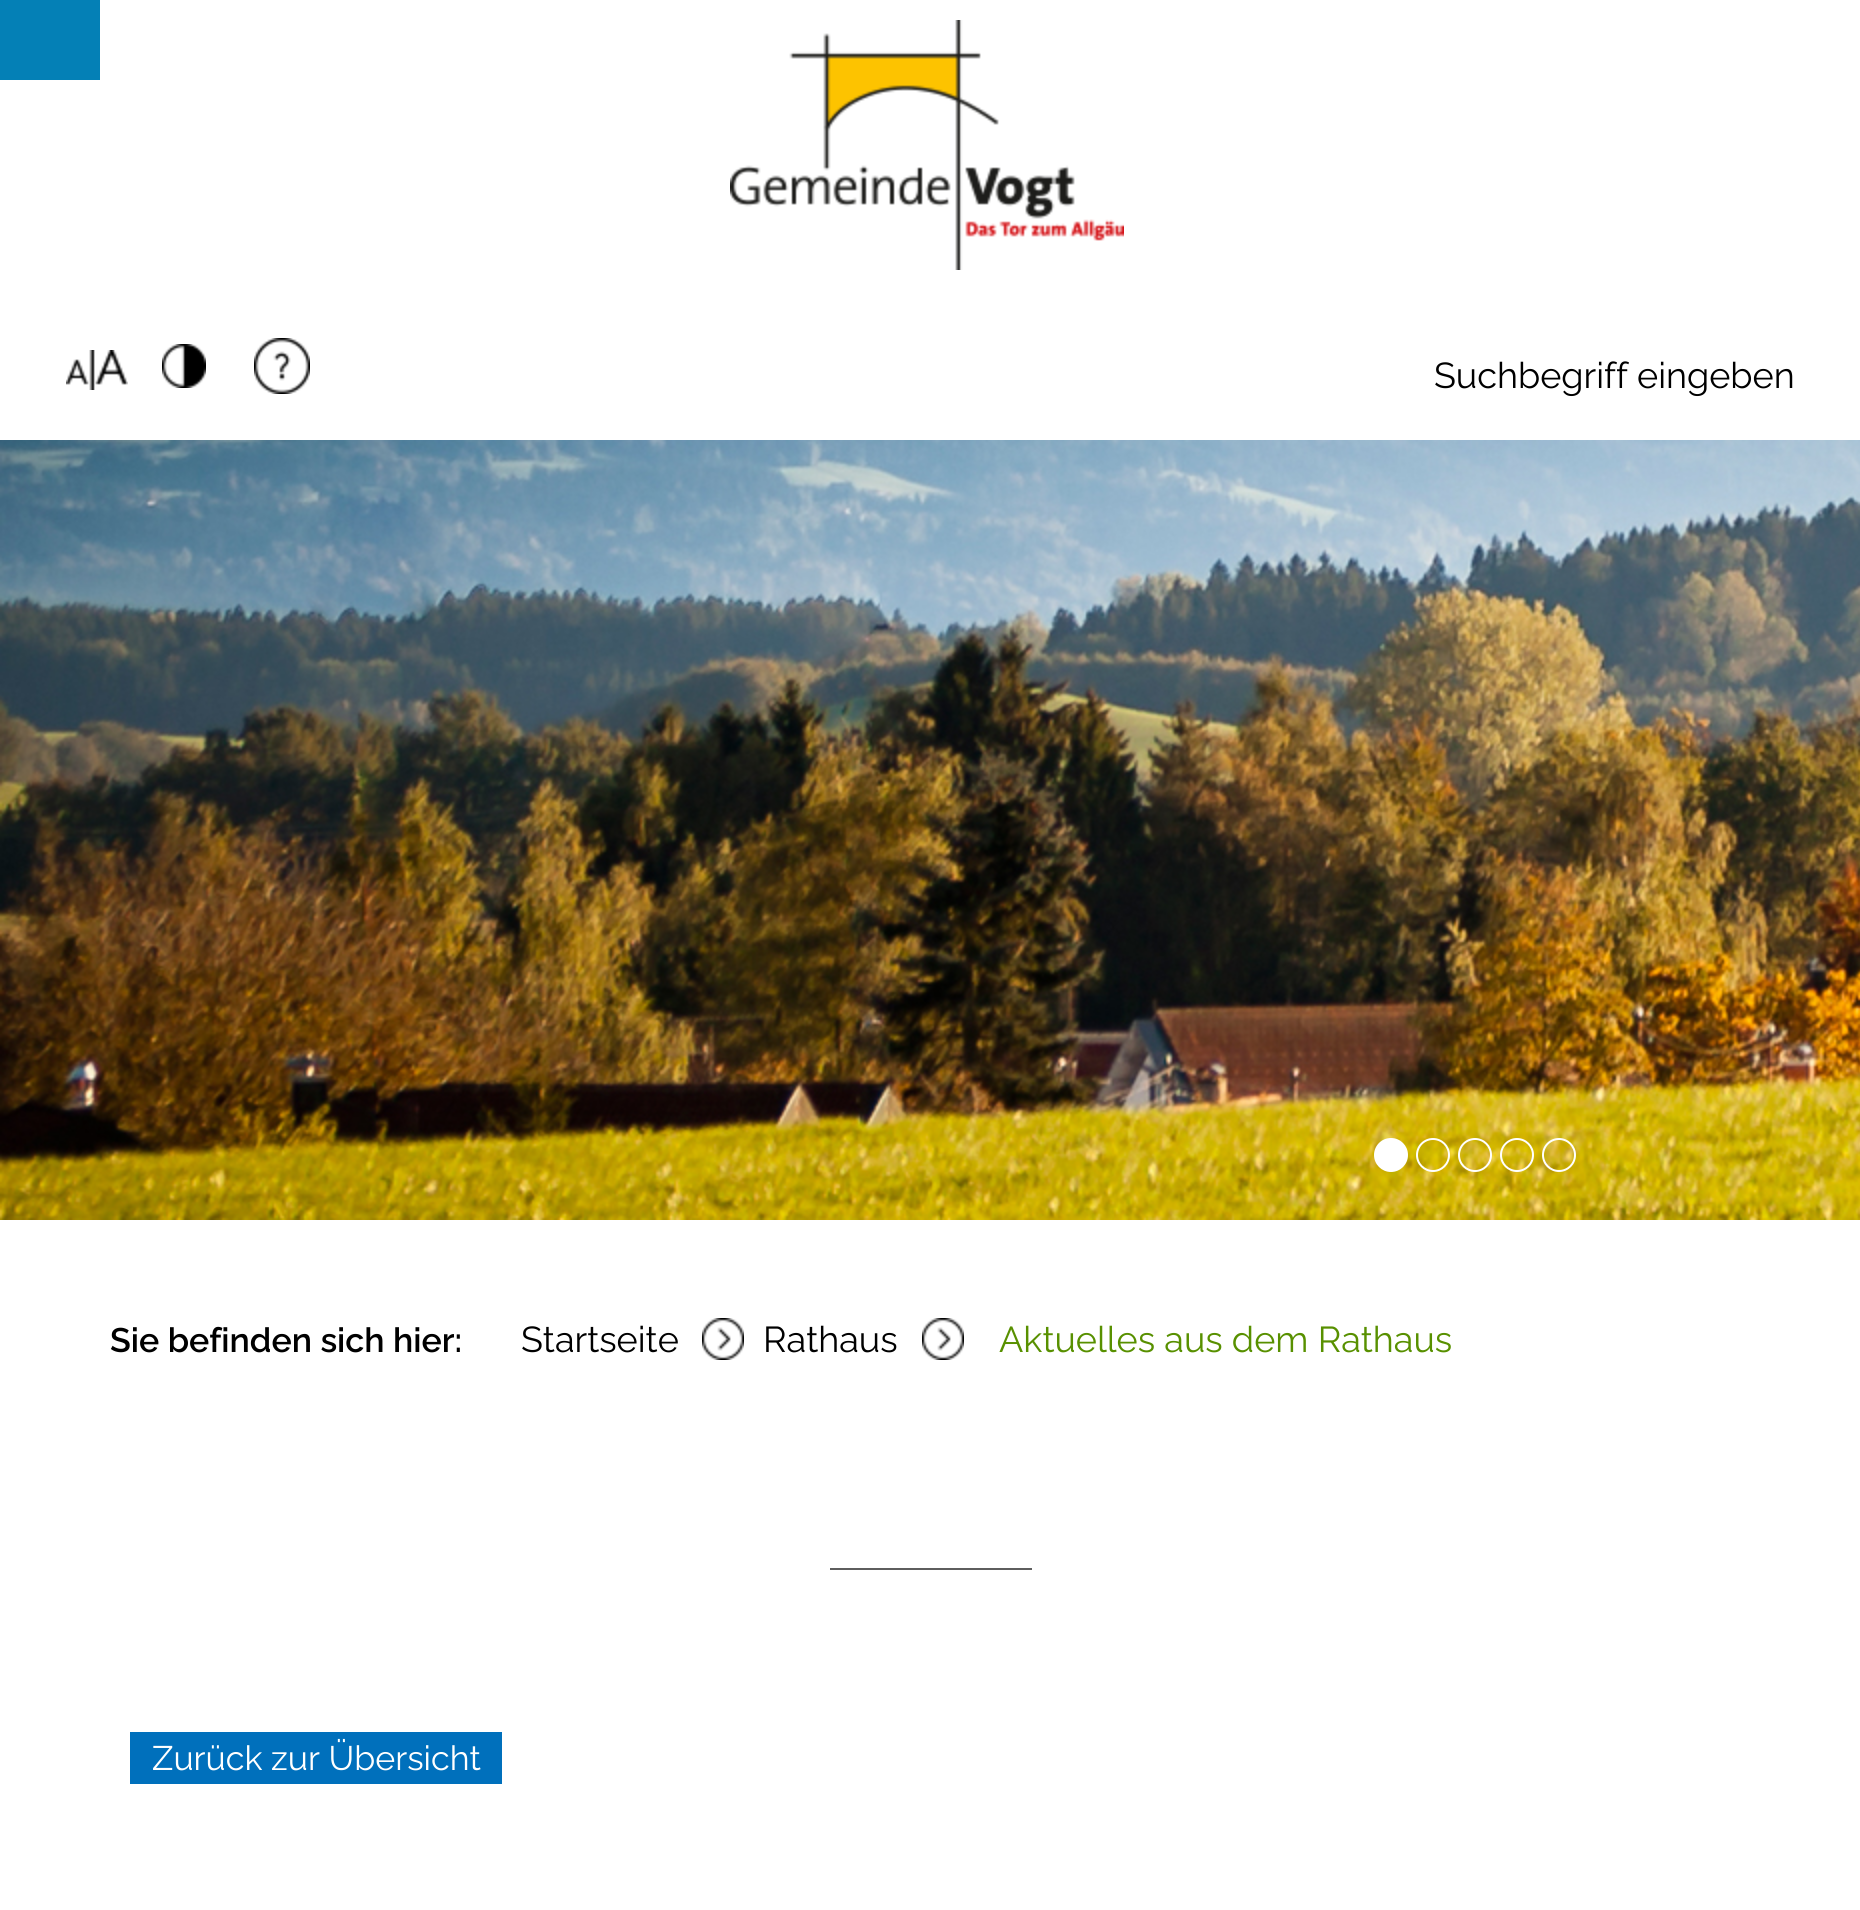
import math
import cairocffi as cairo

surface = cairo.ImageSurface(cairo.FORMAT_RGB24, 1860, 1910)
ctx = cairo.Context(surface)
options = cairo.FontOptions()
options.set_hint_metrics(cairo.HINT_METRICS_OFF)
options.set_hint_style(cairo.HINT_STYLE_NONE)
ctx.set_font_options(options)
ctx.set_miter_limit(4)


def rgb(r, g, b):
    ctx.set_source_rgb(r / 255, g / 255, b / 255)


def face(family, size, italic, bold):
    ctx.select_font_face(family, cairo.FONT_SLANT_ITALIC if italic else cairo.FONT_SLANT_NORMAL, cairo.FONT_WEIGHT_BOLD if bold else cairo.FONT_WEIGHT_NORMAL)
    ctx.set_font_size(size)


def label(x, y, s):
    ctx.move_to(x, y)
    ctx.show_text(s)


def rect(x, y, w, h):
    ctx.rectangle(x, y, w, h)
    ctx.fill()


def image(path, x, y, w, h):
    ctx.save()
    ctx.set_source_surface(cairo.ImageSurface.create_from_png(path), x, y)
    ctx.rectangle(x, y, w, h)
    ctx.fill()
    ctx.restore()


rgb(255, 255, 255)
ctx.paint()
rgb(4, 128, 182)
rect(0, 0, 100, 80)
image('image0.png', 730, 20, 394, 250)
image('image1.png', 66, 350, 62, 40)
image('image2.png', 162, 344, 44, 44)
image('image3.png', 254, 338, 56, 56)
face('Raleway', 36, 0, 0)
rgb(0, 0, 0)
label(1434, 388, 'Suchbegriff eingeben')
image('image4.png', 0, 440, 1860, 780)
rgb(255, 255, 255)
ctx.arc(1391, 1155, 16, 0, 2 * math.pi)
ctx.fill_preserve()
ctx.stroke()
ctx.arc(1433, 1155, 16, 0, 2 * math.pi)
ctx.stroke()
ctx.arc(1475, 1155, 16, 0, 2 * math.pi)
ctx.stroke()
ctx.arc(1517, 1155, 16, 0, 2 * math.pi)
ctx.stroke()
ctx.arc(1559, 1155, 16, 0, 2 * math.pi)
ctx.stroke()
face('Raleway SemiBold', 34, 0, 0)
rgb(0, 0, 0)
label(110, 1352, 'Sie befinden sich hier:')
face('Raleway', 36, 0, 0)
label(521, 1352, 'Startseite')
image('image5.png', 702, 1318, 42, 42)
label(763, 1352, 'Rathaus')
image('image5.png', 922, 1318, 42, 42)
rgb(88, 144, 0)
label(999, 1352, 'Aktuelles aus dem Rathaus')
rgb(94, 94, 94)
rect(830, 1568, 202, 2)
rgb(0, 112, 188)
rect(130, 1732, 372, 52)
face('Raleway', 34, 0, 0)
rgb(255, 255, 255)
label(152, 1770, 'Zurück zur Übersicht')
surface.write_to_png('render.png')
